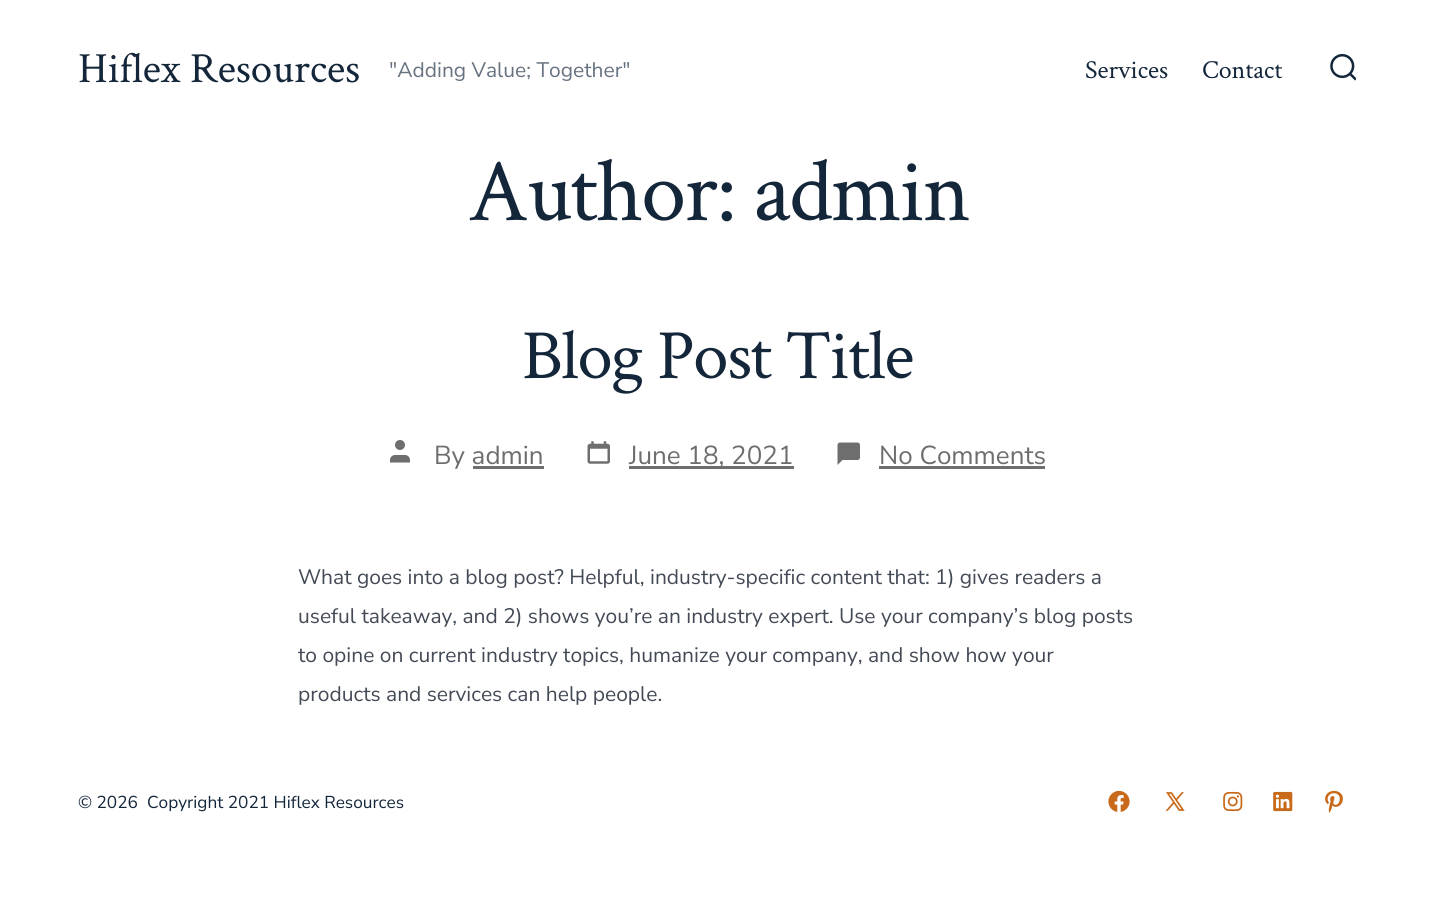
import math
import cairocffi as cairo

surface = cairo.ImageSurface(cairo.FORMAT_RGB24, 1434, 906)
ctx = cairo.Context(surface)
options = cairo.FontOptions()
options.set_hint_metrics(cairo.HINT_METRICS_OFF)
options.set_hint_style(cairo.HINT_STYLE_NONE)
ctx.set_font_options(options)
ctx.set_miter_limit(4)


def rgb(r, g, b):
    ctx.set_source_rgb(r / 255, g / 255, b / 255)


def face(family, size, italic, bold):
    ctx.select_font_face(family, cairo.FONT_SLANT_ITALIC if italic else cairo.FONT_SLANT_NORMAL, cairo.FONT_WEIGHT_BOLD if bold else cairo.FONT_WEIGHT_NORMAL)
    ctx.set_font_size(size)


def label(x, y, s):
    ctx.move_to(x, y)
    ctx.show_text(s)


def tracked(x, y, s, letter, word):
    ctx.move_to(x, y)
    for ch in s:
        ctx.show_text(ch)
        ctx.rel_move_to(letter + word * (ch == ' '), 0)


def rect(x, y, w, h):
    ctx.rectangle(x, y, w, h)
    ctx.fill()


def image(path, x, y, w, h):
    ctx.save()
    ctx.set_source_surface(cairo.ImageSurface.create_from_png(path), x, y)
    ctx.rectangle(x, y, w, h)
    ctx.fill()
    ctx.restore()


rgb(255, 255, 255)
ctx.paint()
face('Crimson Text', 43, 0, 0)
rgb(19, 38, 58)
label(78, 82, 'Hiflex Resources')
face('Nunito Sans', 21, 0, 0)
rgb(102, 114, 127)
label(389, 77, '"Adding Value; Together"')
face('Crimson Text', 26, 0, 0)
rgb(19, 38, 58)
label(1085, 78, 'Services')
label(1202, 78, 'Contact')
image('image0.png', 1330, 54, 26, 27)
face('Crimson Text', 90.25, 0, 0)
tracked(468, 220, 'Author: admin', -1.75, 0)
face('Crimson Text', 70.75, 0, 0)
tracked(522, 378, 'Blog Post Title', -1.4, 0)
image('image1.png', 390, 440, 20, 23)
face('Nunito Sans', 26, 0, 0)
rgb(110, 110, 110)
label(434, 464, 'By admin')
rect(473, 466, 71, 3)
image('image2.png', 587, 441, 23, 23)
rect(629, 466, 165, 3)
label(629, 464, 'June 18, 2021')
image('image3.png', 837, 442, 23, 23)
label(879, 464, 'No Comments')
rect(879, 466, 166, 3)
face('Nunito Sans', 21, 0, 0)
rgb(67, 74, 86)
label(298, 584, 'What goes into a blog post? Helpful, industry-specific content that: 1) gives readers a')
label(298, 623, 'useful takeaway, and 2) shows you’re an industry expert. Use your company’s blog posts')
label(298, 662, 'to opine on current industry topics, humanize your company, and show how your')
label(298, 701, 'products and services can help people.')
face('Nunito Sans', 17.25, 0, 0)
rgb(19, 38, 58)
label(78, 808, '© 2026')
label(147, 808, 'Copyright 2021 Hiflex Resources')
image('image4.png', 1108, 790, 22, 22)
image('image5.png', 1165, 792, 20, 19)
image('image6.png', 1223, 791, 20, 21)
image('image7.png', 1273, 791, 20, 21)
image('image8.png', 1325, 790, 18, 23)
surface.write_to_png('render.png')
